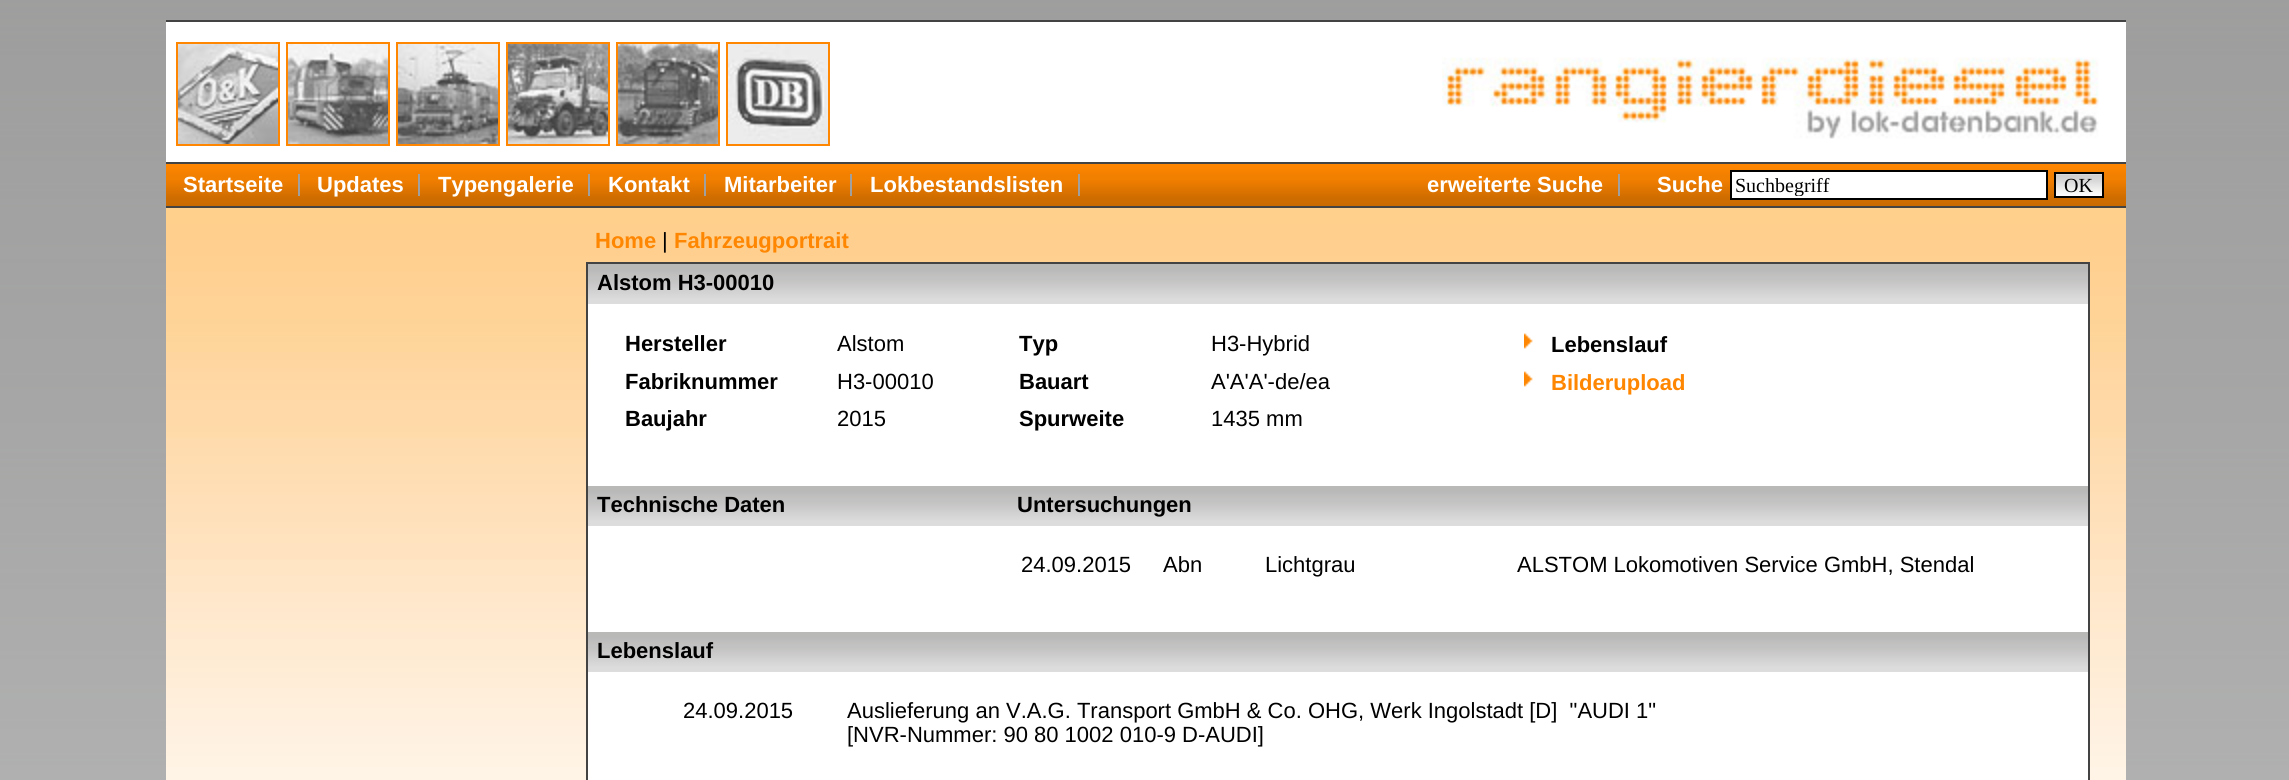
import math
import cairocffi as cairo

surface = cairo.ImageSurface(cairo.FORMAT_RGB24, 2289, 780)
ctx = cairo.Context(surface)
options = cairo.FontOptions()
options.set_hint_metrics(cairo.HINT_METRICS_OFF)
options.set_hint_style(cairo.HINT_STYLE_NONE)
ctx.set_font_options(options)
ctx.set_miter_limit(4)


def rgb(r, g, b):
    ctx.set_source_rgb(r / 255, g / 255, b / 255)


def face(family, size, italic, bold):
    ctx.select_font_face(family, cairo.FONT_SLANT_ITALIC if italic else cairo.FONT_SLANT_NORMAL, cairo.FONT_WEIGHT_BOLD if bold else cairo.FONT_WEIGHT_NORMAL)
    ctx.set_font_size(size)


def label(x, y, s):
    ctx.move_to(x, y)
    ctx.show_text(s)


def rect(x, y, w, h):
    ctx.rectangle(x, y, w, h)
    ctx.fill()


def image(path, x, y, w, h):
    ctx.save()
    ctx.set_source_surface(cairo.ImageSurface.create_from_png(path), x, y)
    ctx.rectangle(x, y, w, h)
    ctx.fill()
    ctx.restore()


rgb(255, 255, 255)
ctx.paint()
image('image0.png', 0, 0, 2289, 780)
rgb(255, 255, 255)
rect(166, 22, 1960, 140)
rgb(67, 67, 67)
rect(166, 20, 1960, 2)
ctx.rectangle(177, 43, 102, 102)
rgb(255, 134, 0)
ctx.stroke()
ctx.rectangle(287, 43, 102, 102)
ctx.stroke()
ctx.rectangle(397, 43, 102, 102)
ctx.stroke()
ctx.rectangle(507, 43, 102, 102)
ctx.stroke()
ctx.rectangle(617, 43, 102, 102)
ctx.stroke()
ctx.rectangle(727, 43, 102, 102)
ctx.stroke()
image('image1.png', 178, 44, 100, 100)
image('image2.png', 288, 44, 100, 100)
image('image3.png', 398, 44, 100, 100)
image('image4.png', 508, 44, 100, 100)
image('image5.png', 618, 44, 100, 100)
image('image6.png', 728, 44, 100, 100)
image('image7.png', 1442, 57, 657, 82)
rgb(67, 67, 67)
rect(166, 162, 1960, 2)
image('image8.png', 166, 164, 1960, 42)
face('Liberation Sans', 22, 0, 1)
rgb(255, 255, 255)
label(183, 192, 'Startseite')
rgb(160, 160, 160)
rect(298, 174, 2, 22)
rgb(255, 255, 255)
label(317, 192, 'Updates')
rgb(160, 160, 160)
rect(418, 174, 2, 22)
rgb(255, 255, 255)
label(438, 192, 'Typengalerie')
rgb(160, 160, 160)
rect(588, 174, 2, 22)
rgb(255, 255, 255)
label(608, 192, 'Kontakt')
rgb(160, 160, 160)
rect(704, 174, 2, 22)
rgb(255, 255, 255)
label(724, 192, 'Mitarbeiter')
rgb(160, 160, 160)
rect(850, 174, 2, 22)
rgb(255, 255, 255)
label(870, 192, 'Lokbestandslisten')
rgb(160, 160, 160)
rect(1078, 174, 2, 22)
rgb(255, 255, 255)
label(1427, 192, 'erweiterte Suche')
rgb(160, 160, 160)
rect(1618, 174, 2, 22)
rgb(255, 255, 255)
label(1657, 192, 'Suche')
ctx.rectangle(1731, 171, 316, 28)
ctx.fill_preserve()
rgb(0, 0, 0)
ctx.stroke()
ctx.save()
ctx.rectangle(1736, 174, 306, 22)
ctx.clip()
face('Liberation Serif', 20, 0, 0)
label(1735, 192, 'Suchbegriff')
ctx.restore()
image('image9.png', 2056, 174, 46, 22)
ctx.rectangle(2055, 173, 48, 24)
ctx.stroke()
face('Liberation Serif', 20, 0, 0)
label(2064, 192, 'OK')
image('image10.png', 166, 208, 1960, 572)
rgb(67, 67, 67)
rect(166, 206, 1960, 2)
face('Liberation Sans', 22, 0, 1)
rgb(255, 134, 0)
label(595, 248, 'Home')
face('Liberation Sans', 22, 0, 0)
rgb(0, 0, 0)
label(662, 248, '|')
face('Liberation Sans', 22, 0, 1)
rgb(255, 134, 0)
label(674, 248, 'Fahrzeugportrait')
rgb(255, 255, 255)
rect(588, 304, 1500, 476)
ctx.rectangle(587, 263, 1502, 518)
rgb(67, 67, 67)
ctx.stroke()
image('image11.png', 588, 264, 1500, 40)
rgb(0, 0, 0)
label(597, 290, 'Alstom H3-00010')
label(625, 351, 'Hersteller')
face('Liberation Sans', 22, 0, 0)
label(837, 351, 'Alstom')
face('Liberation Sans', 22, 0, 1)
label(1019, 351, 'Typ')
face('Liberation Sans', 22, 0, 0)
label(1211, 351, 'H3-Hybrid')
image('image12.png', 1524, 333, 9, 16)
face('Liberation Sans', 22, 0, 1)
label(1551, 352, 'Lebenslauf')
label(625, 389, 'Fabriknummer')
face('Liberation Sans', 22, 0, 0)
label(837, 389, 'H3-00010')
face('Liberation Sans', 22, 0, 1)
label(1019, 389, 'Bauart')
face('Liberation Sans', 22, 0, 0)
label(1211, 389, 'A\'A\'A\'-de/ea')
image('image12.png', 1524, 371, 9, 16)
face('Liberation Sans', 22, 0, 1)
rgb(255, 134, 0)
label(1551, 390, 'Bilderupload')
rgb(0, 0, 0)
label(625, 426, 'Baujahr')
face('Liberation Sans', 22, 0, 0)
label(837, 426, '2015')
face('Liberation Sans', 22, 0, 1)
label(1019, 426, 'Spurweite')
face('Liberation Sans', 22, 0, 0)
label(1211, 426, '1435 mm')
image('image11.png', 588, 486, 1500, 40)
face('Liberation Sans', 22, 0, 1)
label(597, 512, 'Technische Daten')
label(1017, 512, 'Untersuchungen')
face('Liberation Sans', 22, 0, 0)
label(1021, 572, '24.09.2015')
label(1163, 572, 'Abn')
label(1265, 572, 'Lichtgrau')
label(1517, 572, 'ALSTOM Lokomotiven Service GmbH, Stendal')
image('image11.png', 588, 632, 1500, 40)
face('Liberation Sans', 22, 0, 1)
label(597, 658, 'Lebenslauf')
face('Liberation Sans', 22, 0, 0)
label(683, 718, '24.09.2015')
label(847, 718, 'Auslieferung an V.A.G. Transport GmbH & Co. OHG, Werk Ingolstadt [D]  "AUDI 1"')
label(847, 742, '[NVR-Nummer: 90 80 1002 010-9 D-AUDI]')
surface.write_to_png('render.png')
